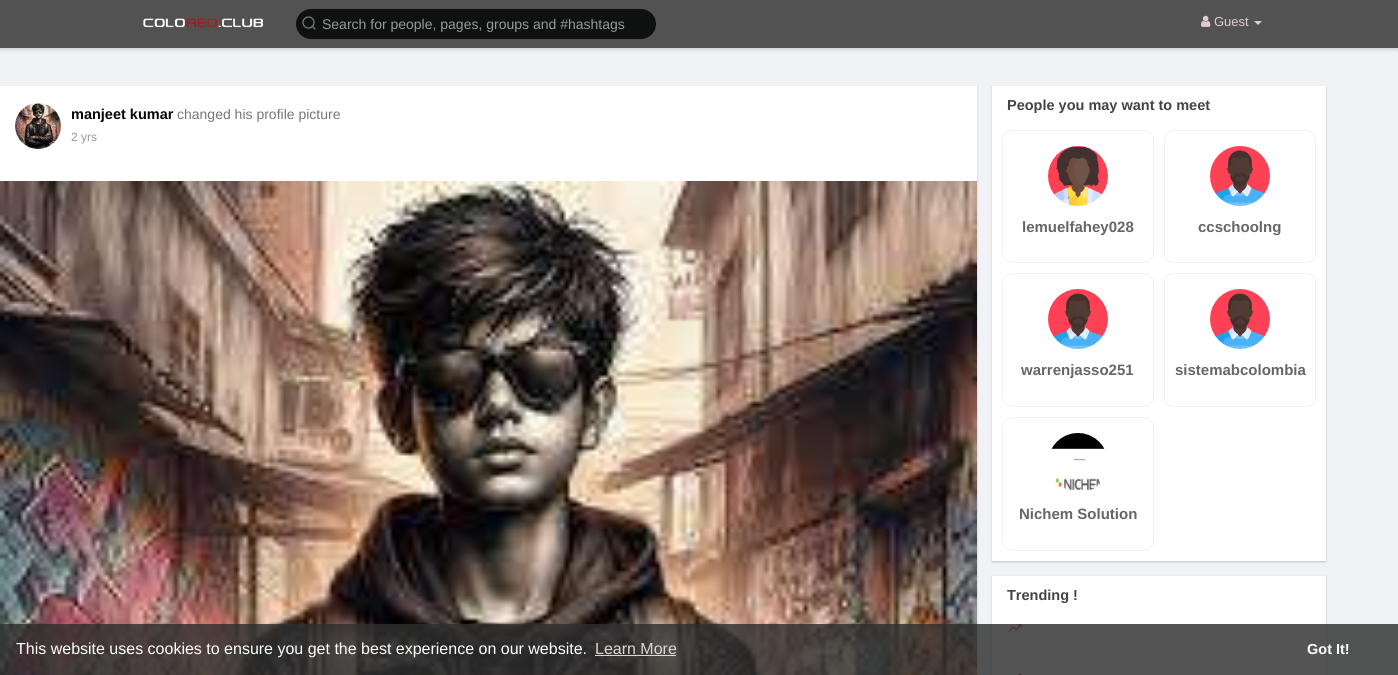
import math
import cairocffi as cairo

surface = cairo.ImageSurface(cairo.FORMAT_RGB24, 1398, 675)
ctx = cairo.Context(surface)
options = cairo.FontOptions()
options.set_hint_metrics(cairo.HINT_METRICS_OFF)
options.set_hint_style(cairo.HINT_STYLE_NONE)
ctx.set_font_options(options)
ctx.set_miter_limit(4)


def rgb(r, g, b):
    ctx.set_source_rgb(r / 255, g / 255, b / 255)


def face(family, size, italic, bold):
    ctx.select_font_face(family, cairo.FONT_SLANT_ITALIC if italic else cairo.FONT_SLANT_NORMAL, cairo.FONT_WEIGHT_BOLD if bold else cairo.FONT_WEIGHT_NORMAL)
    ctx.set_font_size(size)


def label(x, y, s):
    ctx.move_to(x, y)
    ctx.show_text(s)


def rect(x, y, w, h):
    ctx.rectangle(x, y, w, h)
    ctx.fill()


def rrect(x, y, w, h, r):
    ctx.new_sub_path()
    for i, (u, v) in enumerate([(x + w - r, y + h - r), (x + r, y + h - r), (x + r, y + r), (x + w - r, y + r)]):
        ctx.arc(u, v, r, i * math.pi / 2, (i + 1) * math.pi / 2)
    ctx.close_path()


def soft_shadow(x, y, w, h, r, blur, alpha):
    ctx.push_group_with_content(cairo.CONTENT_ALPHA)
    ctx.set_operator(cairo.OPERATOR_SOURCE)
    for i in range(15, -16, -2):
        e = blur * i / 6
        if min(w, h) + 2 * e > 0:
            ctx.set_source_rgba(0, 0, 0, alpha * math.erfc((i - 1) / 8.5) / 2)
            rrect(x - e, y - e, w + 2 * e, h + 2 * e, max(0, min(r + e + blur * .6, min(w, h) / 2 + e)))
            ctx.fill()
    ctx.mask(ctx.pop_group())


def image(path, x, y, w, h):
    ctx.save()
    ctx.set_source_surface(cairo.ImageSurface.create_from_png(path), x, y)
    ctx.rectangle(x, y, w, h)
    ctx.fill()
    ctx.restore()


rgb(240, 242, 245)
ctx.paint()
rgb(0, 0, 0)
soft_shadow(0, 2, 1398, 48, 0, 2, 0.15)
rgb(82, 82, 83)
rect(0, 0, 1398, 48)
image('image0.png', 143, 18, 121, 10)
rgb(15, 17, 16)
rrect(296, 9, 360, 30, 15)
ctx.fill()
ctx.arc(308.5, 22.5, 5.5, 0, 2 * math.pi)
rgb(120, 120, 120)
ctx.set_line_width(1.3)
ctx.stroke()
ctx.new_path()
ctx.move_to(315, 29)
ctx.line_to(312, 26)
ctx.set_line_cap(cairo.LINE_CAP_ROUND)
ctx.set_line_join(cairo.LINE_JOIN_ROUND)
ctx.stroke()
face('Liberation Sans', 14, 0, 0)
rgb(153, 153, 153)
label(322, 29, 'Search for people, pages, groups and #hashtags')
image('image1.png', 1201, 15, 10, 12)
face('Liberation Sans', 13, 0, 0)
rgb(223, 205, 205)
label(1214, 26, 'Guest')
ctx.new_path()
ctx.move_to(1254, 21)
ctx.line_to(1262, 21)
ctx.line_to(1258, 25)
ctx.close_path()
ctx.fill()
rgb(0, 0, 0)
soft_shadow(0, 87, 977, 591, 0, 1, 0.2)
rgb(255, 255, 255)
rect(0, 86, 977, 95)
image('image2.png', 15, 103, 46, 46)
face('Liberation Sans', 14.5, 0, 1)
rgb(5, 5, 5)
label(71, 119, 'manjeet kumar')
face('Liberation Sans', 14, 0, 0)
rgb(119, 119, 119)
label(177, 119, 'changed his profile picture')
face('Liberation Sans', 12, 0, 0)
rgb(145, 151, 163)
label(71, 141, '2 yrs')
image('image3.png', 0, 181, 977, 494)
rgb(0, 0, 0)
soft_shadow(992, 87, 334, 475, 0, 1, 0.2)
rgb(255, 255, 255)
rect(992, 86, 334, 475)
face('Liberation Sans', 14.5, 0, 1)
rgb(68, 68, 68)
label(1007, 110, 'People you may want to meet')
rrect(1002.5, 130.5, 151, 132, 9.5)
rgb(240, 242, 245)
ctx.set_line_width(1)
ctx.set_line_cap(cairo.LINE_CAP_BUTT)
ctx.set_line_join(cairo.LINE_JOIN_MITER)
ctx.stroke()
image('image4.png', 1048, 146, 60, 60)
face('Liberation Sans', 15, 0, 1)
rgb(102, 102, 102)
label(1022, 232, 'lemuelfahey028')
rrect(1164.5, 130.5, 151, 132, 9.5)
rgb(240, 242, 245)
ctx.stroke()
image('image5.png', 1210, 146, 60, 60)
rgb(102, 102, 102)
label(1198, 232, 'ccschoolng')
rrect(1002.5, 273.5, 151, 133, 9.5)
rgb(240, 242, 245)
ctx.stroke()
image('image6.png', 1048, 289, 60, 60)
rgb(102, 102, 102)
label(1021, 375, 'warrenjasso251')
rrect(1164.5, 273.5, 151, 133, 9.5)
rgb(240, 242, 245)
ctx.stroke()
image('image7.png', 1210, 289, 60, 60)
rgb(102, 102, 102)
label(1175, 375, 'sistemabcolombia')
rrect(1002.5, 417.5, 151, 133, 9.5)
rgb(240, 242, 245)
ctx.stroke()
image('image8.png', 1051, 433, 54, 57)
rgb(102, 102, 102)
label(1019, 519, 'Nichem Solution')
rgb(0, 0, 0)
soft_shadow(992, 577, 334, 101, 0, 1, 0.2)
rgb(255, 255, 255)
rect(992, 576, 334, 99)
face('Liberation Sans', 14.5, 0, 1)
rgb(68, 68, 68)
label(1007, 600, 'Trending !')
image('image9.png', 1008, 624, 14, 8)
image('image10.png', 1017, 674, 5, 1)
ctx.set_source_rgba(0.184, 0.184, 0.184, 0.82)
rect(0, 624, 1398, 51)
face('Liberation Sans', 16, 0, 0)
rgb(255, 255, 255)
label(16, 654, 'This website uses cookies to ensure you get the best experience on our website.')
rgb(217, 216, 216)
label(595, 654, 'Learn More')
ctx.set_source_rgba(1, 1, 1, 0.8)
rect(595, 655, 81, 1)
face('Liberation Sans', 14.5, 0, 1)
rgb(255, 255, 255)
label(1307, 654, 'Got It!')
surface.write_to_png('render.png')
